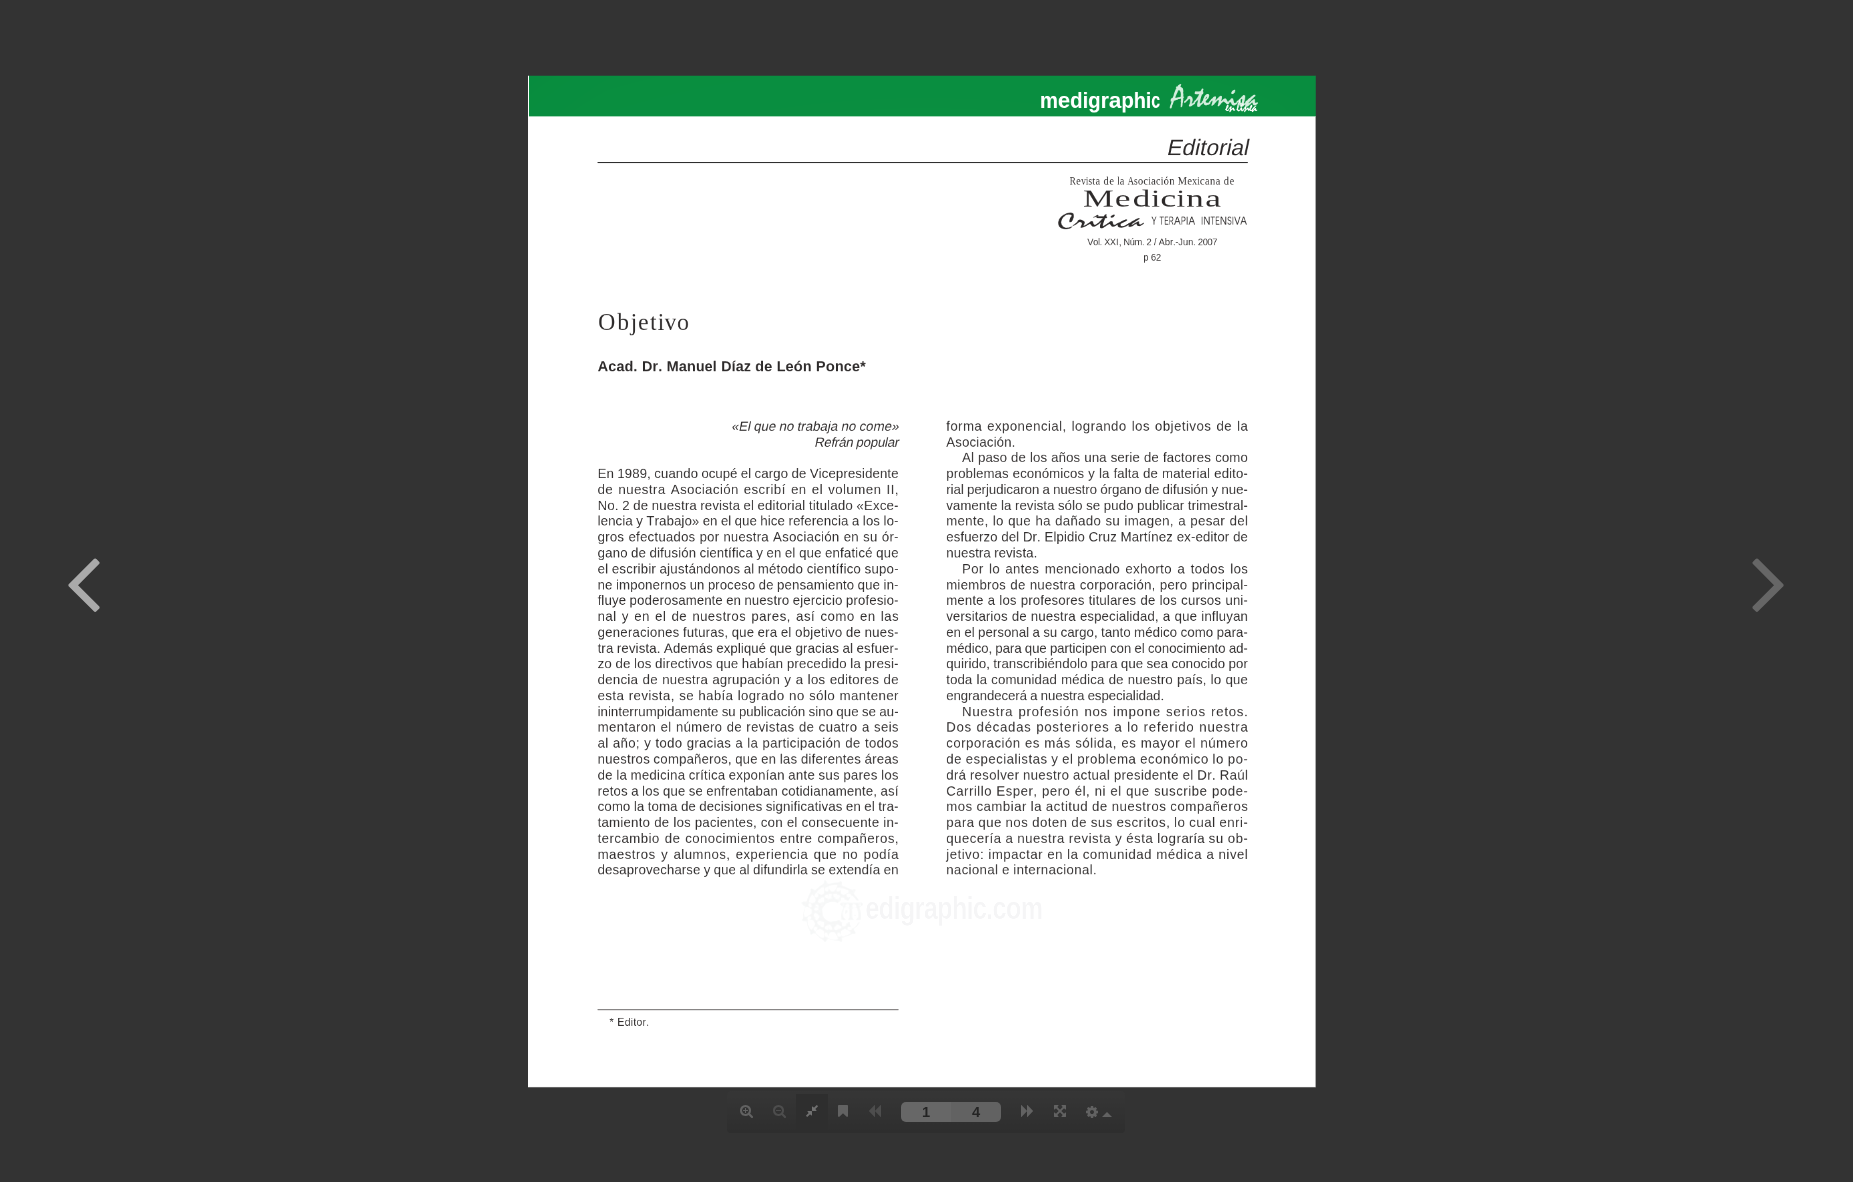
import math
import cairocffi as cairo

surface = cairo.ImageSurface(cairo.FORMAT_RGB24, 1853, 1182)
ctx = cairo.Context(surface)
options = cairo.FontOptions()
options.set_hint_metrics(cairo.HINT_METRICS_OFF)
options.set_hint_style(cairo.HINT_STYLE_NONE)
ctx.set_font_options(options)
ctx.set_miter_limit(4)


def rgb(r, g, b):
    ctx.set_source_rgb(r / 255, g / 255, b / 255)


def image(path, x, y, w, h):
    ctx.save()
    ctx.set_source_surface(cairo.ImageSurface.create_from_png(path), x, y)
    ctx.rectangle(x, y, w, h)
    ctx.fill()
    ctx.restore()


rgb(51, 51, 51)
ctx.paint()
image('image0.png', 68, 75, 1716, 1058)
surface.write_to_png('render.png')
